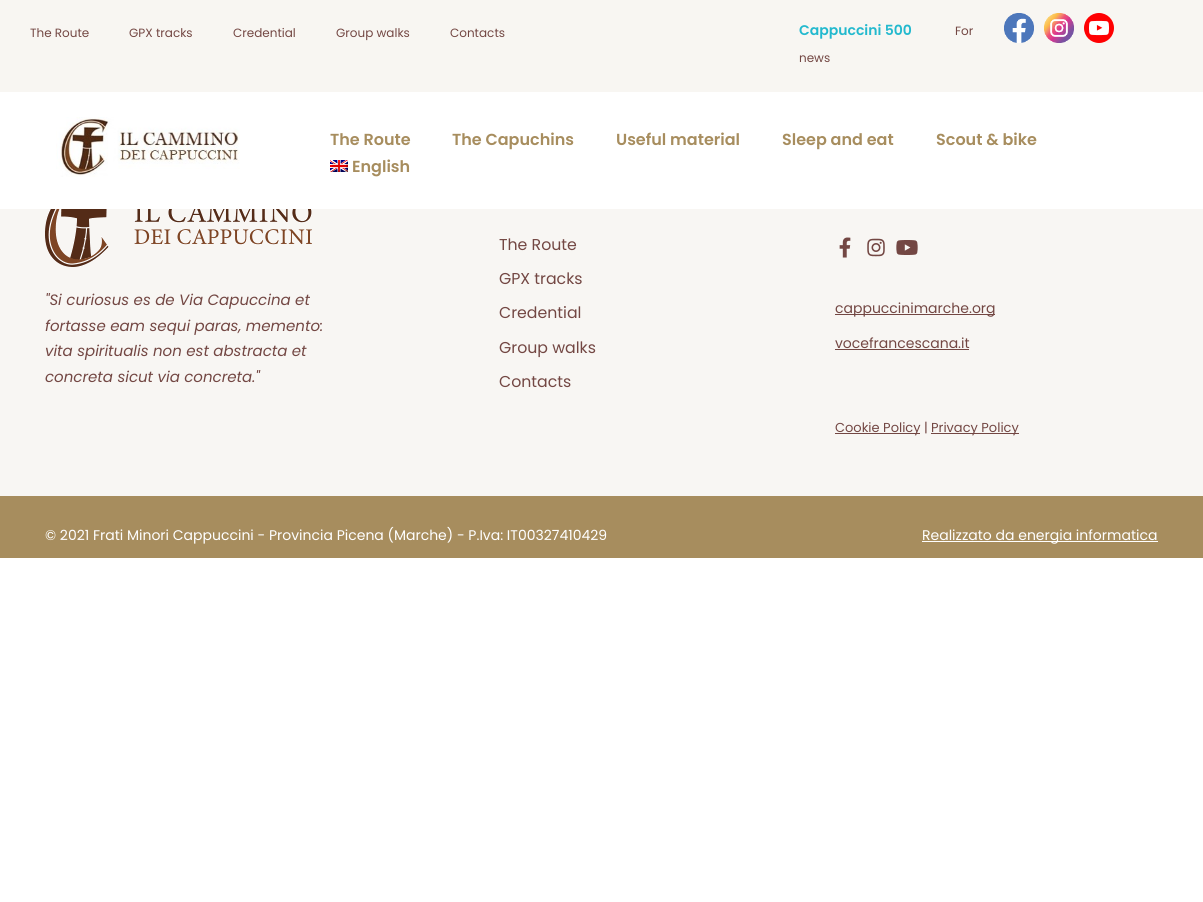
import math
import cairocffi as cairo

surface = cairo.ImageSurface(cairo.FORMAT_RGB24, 1203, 902)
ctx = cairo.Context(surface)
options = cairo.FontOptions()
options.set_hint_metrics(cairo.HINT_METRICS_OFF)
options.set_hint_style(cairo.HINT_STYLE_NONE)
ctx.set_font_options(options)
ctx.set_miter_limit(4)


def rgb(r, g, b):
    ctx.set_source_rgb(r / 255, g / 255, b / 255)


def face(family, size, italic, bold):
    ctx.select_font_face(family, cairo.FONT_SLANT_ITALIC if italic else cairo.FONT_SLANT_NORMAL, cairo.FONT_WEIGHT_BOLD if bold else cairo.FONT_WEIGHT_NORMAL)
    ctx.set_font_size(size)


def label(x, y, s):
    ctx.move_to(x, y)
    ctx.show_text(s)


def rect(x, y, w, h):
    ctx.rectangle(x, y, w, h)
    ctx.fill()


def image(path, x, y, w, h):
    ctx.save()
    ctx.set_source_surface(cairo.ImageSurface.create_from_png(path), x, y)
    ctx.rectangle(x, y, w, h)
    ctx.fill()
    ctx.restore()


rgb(255, 255, 255)
ctx.paint()
rgb(248, 246, 242)
rect(0, 0, 1203, 92)
face('Poppins', 12, 0, 0)
rgb(115, 71, 67)
label(30, 37, 'The Route')
label(129, 37, 'GPX tracks')
label(233, 37, 'Credential')
label(336, 37, 'Group walks')
label(450, 37, 'Contacts')
face('Poppins SemiBold', 14, 0, 0)
rgb(35, 185, 206)
label(799, 35, 'Cappuccini 500')
face('Poppins', 12, 0, 0)
rgb(115, 71, 67)
label(955, 35, 'For')
label(799, 62, 'news')
image('image0.png', 1004, 13, 30, 30)
image('image1.png', 1044, 13, 30, 30)
image('image2.png', 1084, 13, 30, 30)
image('image3.png', 56, 117, 184, 60)
face('Poppins SemiBold', 16, 0, 0)
rgb(167, 141, 94)
label(330, 145, 'The Route')
label(452, 145, 'The Capuchins')
label(616, 145, 'Useful material')
label(782, 145, 'Sleep and eat')
label(936, 145, 'Scout & bike')
image('image4.png', 330, 160, 18, 12)
label(352, 172, 'English')
rgb(248, 246, 243)
rect(0, 209, 1203, 287)
image('image5.png', 45, 209, 267, 58)
face('Poppins', 15, 1, 0)
rgb(115, 71, 67)
label(45, 305, '"Si curiosus es de Via Capuccina et')
label(45, 331, 'fortasse eam sequi paras, memento:')
label(45, 356, 'vita spiritualis non est abstracta et')
label(45, 382, 'concreta sicut via concreta."')
face('Poppins', 15.75, 0, 0)
label(499, 250, 'The Route')
label(499, 284, 'GPX tracks')
label(499, 318, 'Credential')
label(499, 353, 'Group walks')
label(499, 387, 'Contacts')
image('image6.png', 839, 237, 12, 21)
image('image7.png', 867, 238, 18, 19)
image('image8.png', 896, 240, 22, 15)
rect(835, 314, 160, 1)
face('Poppins', 14, 0, 0)
label(835, 313, 'cappuccinimarche.org')
label(835, 348, 'vocefrancescana.it')
rect(835, 349, 134, 1)
rect(835, 433, 85, 1)
face('Poppins', 13, 0, 0)
label(835, 432, 'Cookie Policy |')
rect(931, 433, 88, 1)
label(931, 432, 'Privacy Policy')
rgb(167, 141, 94)
rect(0, 496, 1203, 62)
face('Poppins', 14, 0, 0)
rgb(255, 255, 255)
label(45, 540, '© 2021 Frati Minori Cappuccini - Provincia Picena (Marche) - P.Iva: IT00327410429')
rect(922, 541, 236, 1)
label(922, 540, 'Realizzato da energia informatica')
surface.write_to_png('render.png')
